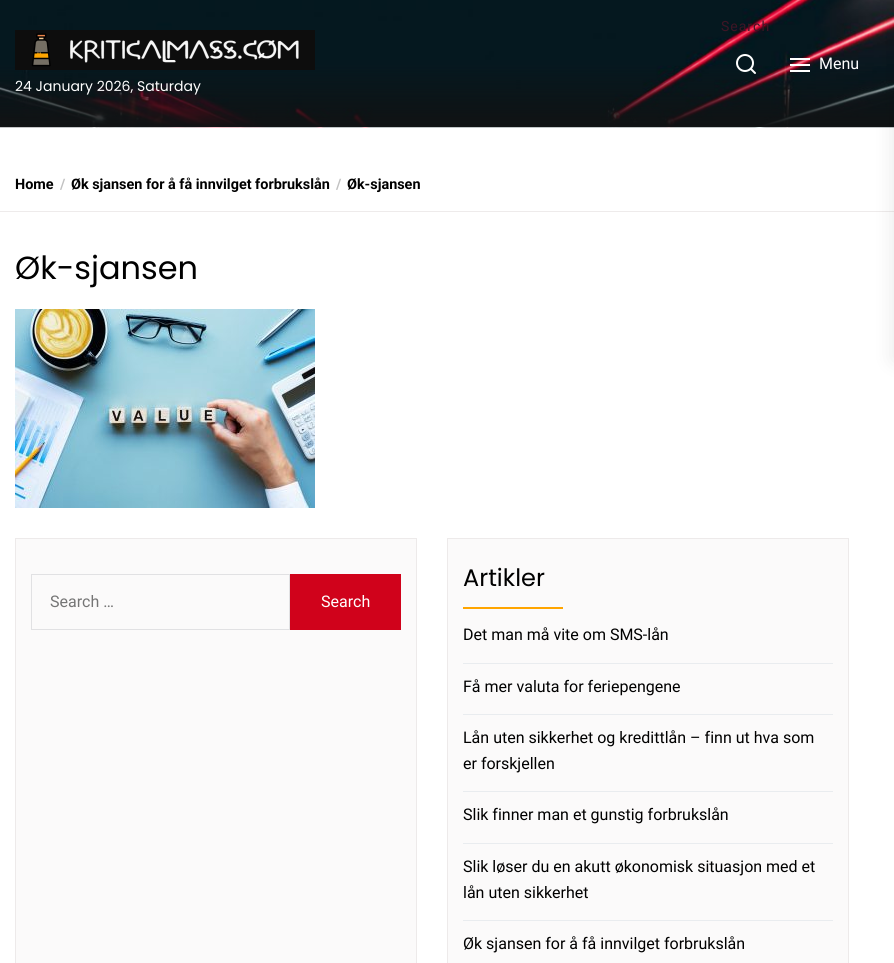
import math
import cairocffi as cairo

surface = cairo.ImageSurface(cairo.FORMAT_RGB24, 894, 963)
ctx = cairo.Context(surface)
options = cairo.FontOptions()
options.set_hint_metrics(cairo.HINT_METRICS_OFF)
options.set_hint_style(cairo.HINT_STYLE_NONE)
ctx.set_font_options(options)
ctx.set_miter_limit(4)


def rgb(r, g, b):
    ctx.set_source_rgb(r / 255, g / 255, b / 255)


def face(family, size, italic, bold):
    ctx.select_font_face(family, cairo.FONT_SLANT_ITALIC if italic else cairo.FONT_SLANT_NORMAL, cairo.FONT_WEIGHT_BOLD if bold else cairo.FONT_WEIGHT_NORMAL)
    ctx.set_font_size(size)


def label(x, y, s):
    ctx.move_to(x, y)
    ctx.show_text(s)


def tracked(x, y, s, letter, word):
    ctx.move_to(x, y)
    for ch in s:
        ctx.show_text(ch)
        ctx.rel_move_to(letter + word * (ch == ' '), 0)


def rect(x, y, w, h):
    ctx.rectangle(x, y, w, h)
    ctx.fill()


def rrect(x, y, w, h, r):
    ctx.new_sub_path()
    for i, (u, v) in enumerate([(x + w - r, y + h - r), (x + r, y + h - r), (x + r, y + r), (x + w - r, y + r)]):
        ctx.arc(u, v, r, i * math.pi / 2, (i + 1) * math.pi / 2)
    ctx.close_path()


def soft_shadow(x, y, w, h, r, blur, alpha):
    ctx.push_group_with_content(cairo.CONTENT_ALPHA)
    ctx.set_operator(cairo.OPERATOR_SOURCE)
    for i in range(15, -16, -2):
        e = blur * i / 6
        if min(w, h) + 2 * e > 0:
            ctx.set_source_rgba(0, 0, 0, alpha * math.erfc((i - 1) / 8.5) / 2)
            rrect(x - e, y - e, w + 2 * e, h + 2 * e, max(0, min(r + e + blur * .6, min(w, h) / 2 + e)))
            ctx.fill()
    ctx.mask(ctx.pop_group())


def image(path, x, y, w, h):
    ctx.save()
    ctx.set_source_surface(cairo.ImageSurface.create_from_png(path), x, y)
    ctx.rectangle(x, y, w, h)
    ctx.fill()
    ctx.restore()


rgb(255, 255, 255)
ctx.paint()
image('image0.png', 0, 0, 894, 128)
face('Roboto', 14, 0, 0)
rgb(62, 21, 37)
tracked(721, 31, 'Search', 1, 0)
gradient = cairo.LinearGradient(447, 127, 447, 0)
gradient.add_color_stop_rgba(0, 0.063, 0.071, 0.075, 1)
gradient.add_color_stop_rgba(0.5, 0.063, 0.071, 0.075, 0)
ctx.set_source(gradient)
rect(0, 65, 894, 62)
image('image1.png', 736, 54, 20, 20)
rgb(255, 255, 255)
rect(790, 58, 20, 2)
rect(790, 64, 20, 2)
rect(790, 70, 20, 2)
face('Roboto', 16, 0, 0)
label(819, 69, 'Menu')
image('image2.png', 15, 30, 300, 40)
face('Poppins', 14, 0, 0)
label(15, 91, '24 January 2026, Saturday')
rgb(238, 235, 235)
rect(0, 211, 894, 1)
face('Roboto', 14.4, 0, 1)
rgb(0, 0, 0)
label(15, 189, 'Home')
rgb(194, 194, 194)
label(60, 189, '/')
rgb(0, 0, 0)
label(71, 189, 'Øk sjansen for å få innvilget forbrukslån')
rgb(194, 194, 194)
label(336, 189, '/')
rgb(0, 0, 0)
label(347, 189, 'Øk-sjansen')
rgb(0, 0, 0)
soft_shadow(894, 0, 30, 360, 0, 10, 0.1)
face('Poppins', 32, 0, 0)
rgb(0, 0, 0)
label(15, 279, 'Øk-sjansen')
image('image3.png', 15, 309, 300, 199)
rgb(251, 250, 250)
ctx.rectangle(15.5, 538.5, 401, 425)
ctx.fill_preserve()
rgb(237, 234, 234)
ctx.set_line_width(1)
ctx.stroke()
ctx.rectangle(31.5, 574.5, 258, 55)
rgb(225, 225, 227)
ctx.stroke()
face('Roboto', 16, 0, 0)
rgb(117, 117, 117)
label(50, 607, 'Search …')
rgb(208, 2, 27)
rect(290, 574, 111, 56)
rgb(255, 255, 255)
label(321, 607, 'Search')
rgb(251, 250, 250)
ctx.rectangle(447.5, 538.5, 401, 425)
ctx.fill_preserve()
rgb(237, 234, 234)
ctx.stroke()
face('Poppins', 24, 0, 0)
rgb(0, 0, 0)
label(463, 586, 'Artikler')
rgb(255, 165, 0)
rect(463, 607, 100, 2)
rgb(233, 236, 239)
rect(463, 663, 370, 1)
face('Roboto', 16, 0, 0)
rgb(0, 0, 0)
label(463, 640, 'Det man må vite om SMS-lån')
rgb(233, 236, 239)
rect(463, 714, 370, 1)
rgb(0, 0, 0)
label(463, 692, 'Få mer valuta for feriepengene')
rgb(233, 236, 239)
rect(463, 791, 370, 1)
rgb(0, 0, 0)
label(463, 743, 'Lån uten sikkerhet og kredittlån – finn ut hva som')
label(463, 769, 'er forskjellen')
rgb(233, 236, 239)
rect(463, 843, 370, 1)
rgb(0, 0, 0)
label(463, 820, 'Slik finner man et gunstig forbrukslån')
rgb(233, 236, 239)
rect(463, 920, 370, 1)
rgb(0, 0, 0)
label(463, 872, 'Slik løser du en akutt økonomisk situasjon med et')
label(463, 898, 'lån uten sikkerhet')
label(463, 949, 'Øk sjansen for å få innvilget forbrukslån')
surface.write_to_png('render.png')
